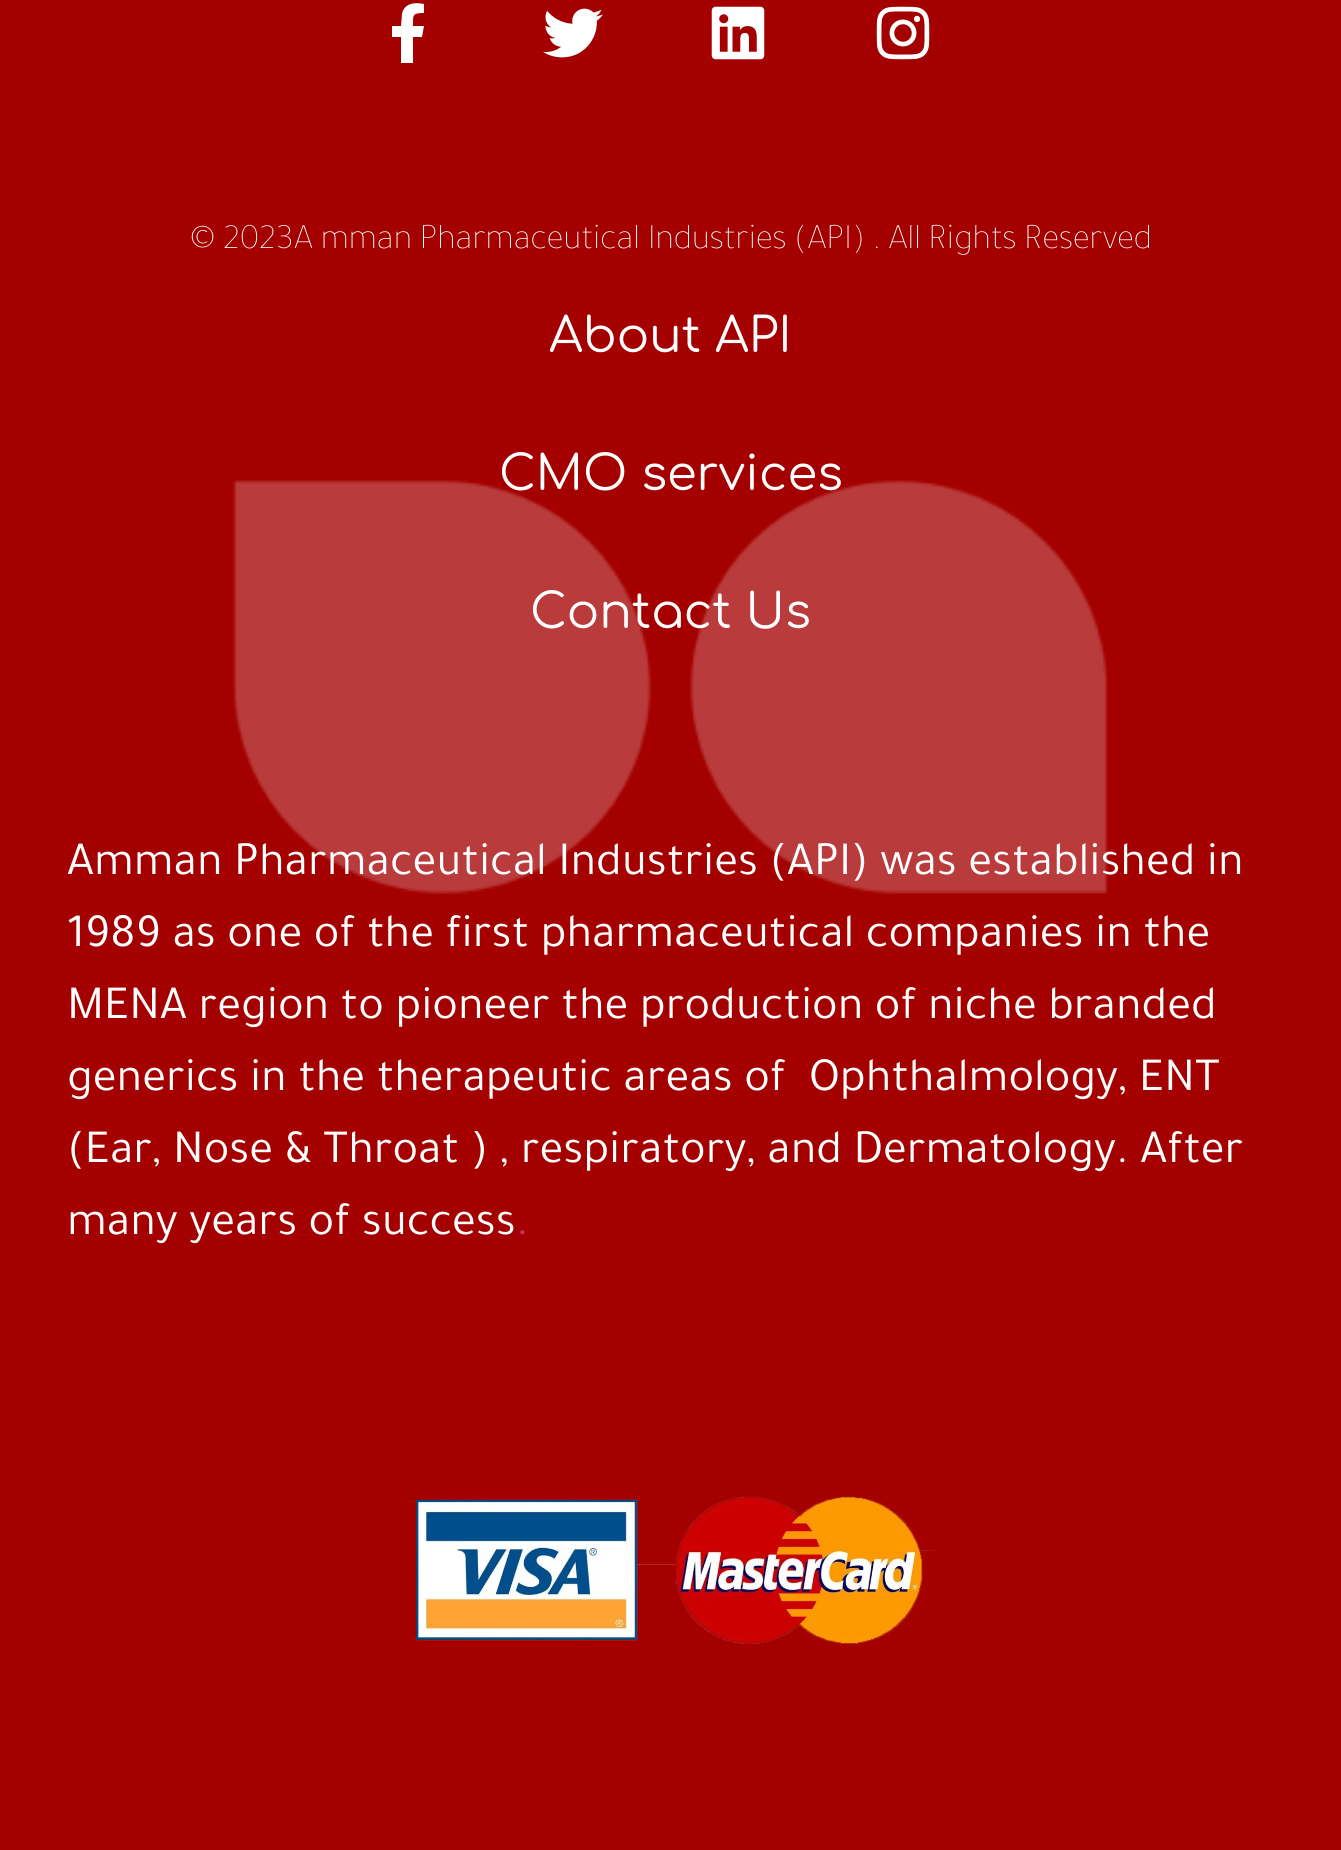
import math
import cairocffi as cairo

surface = cairo.ImageSurface(cairo.FORMAT_RGB24, 1341, 1850)
ctx = cairo.Context(surface)
options = cairo.FontOptions()
options.set_hint_metrics(cairo.HINT_METRICS_OFF)
options.set_hint_style(cairo.HINT_STYLE_NONE)
ctx.set_font_options(options)
ctx.set_miter_limit(4)


def rgb(r, g, b):
    ctx.set_source_rgb(r / 255, g / 255, b / 255)


def face(family, size, italic, bold):
    ctx.select_font_face(family, cairo.FONT_SLANT_ITALIC if italic else cairo.FONT_SLANT_NORMAL, cairo.FONT_WEIGHT_BOLD if bold else cairo.FONT_WEIGHT_NORMAL)
    ctx.set_font_size(size)


def label(x, y, s):
    ctx.move_to(x, y)
    ctx.show_text(s)


def image(path, x, y, w, h):
    ctx.save()
    ctx.set_source_surface(cairo.ImageSurface.create_from_png(path), x, y)
    ctx.rectangle(x, y, w, h)
    ctx.fill()
    ctx.restore()


rgb(164, 0, 0)
ctx.paint()
rgb(255, 255, 255)
ctx.new_path()
ctx.move_to(422, 37)
ctx.line_to(424, 26)
ctx.line_to(413, 26)
ctx.curve_to(413, 15, 412, 13, 424, 13)
ctx.line_to(424, 4)
ctx.curve_to(415, 2, 404, 3, 402, 14)
ctx.line_to(401, 26)
ctx.line_to(392, 26)
ctx.line_to(392, 37)
ctx.line_to(401, 37)
ctx.line_to(401, 63)
ctx.line_to(413, 63)
ctx.line_to(413, 37)
ctx.close_path()
ctx.fill()
image('image0.png', 543, 8, 60, 50)
image('image1.png', 711, 6, 54, 54)
image('image2.png', 876, 6, 54, 54)
face('Tajawal ExtraLight', 36, 0, 0)
label(190, 248, '© 2023A mman Pharmaceutical Industries (API) . All Rights Reserved')
face('Comfortaa', 48, 0, 0)
label(549, 352, 'About API')
image('image4.png', 233, 480, 875, 414)
label(499, 490, 'CMO services')
label(530, 628, 'Contact Us')
face('Tajawal', 48, 0, 0)
label(67, 874, 'Amman Pharmaceutical Industries (API) was established in')
label(67, 946, '1989 as one of the first pharmaceutical companies in the')
label(67, 1018, 'MENA region to pioneer the production of niche branded')
label(67, 1090, 'generics in the therapeutic areas of  Ophthalmology, ENT')
label(67, 1162, '(Ear, Nose & Throat ) , respiratory, and Dermatology. After')
label(67, 1234, 'many years of success')
rgb(204, 51, 102)
label(516, 1234, '.')
image('image3.png', 405, 1496, 531, 148)
surface.write_to_png('render.png')
